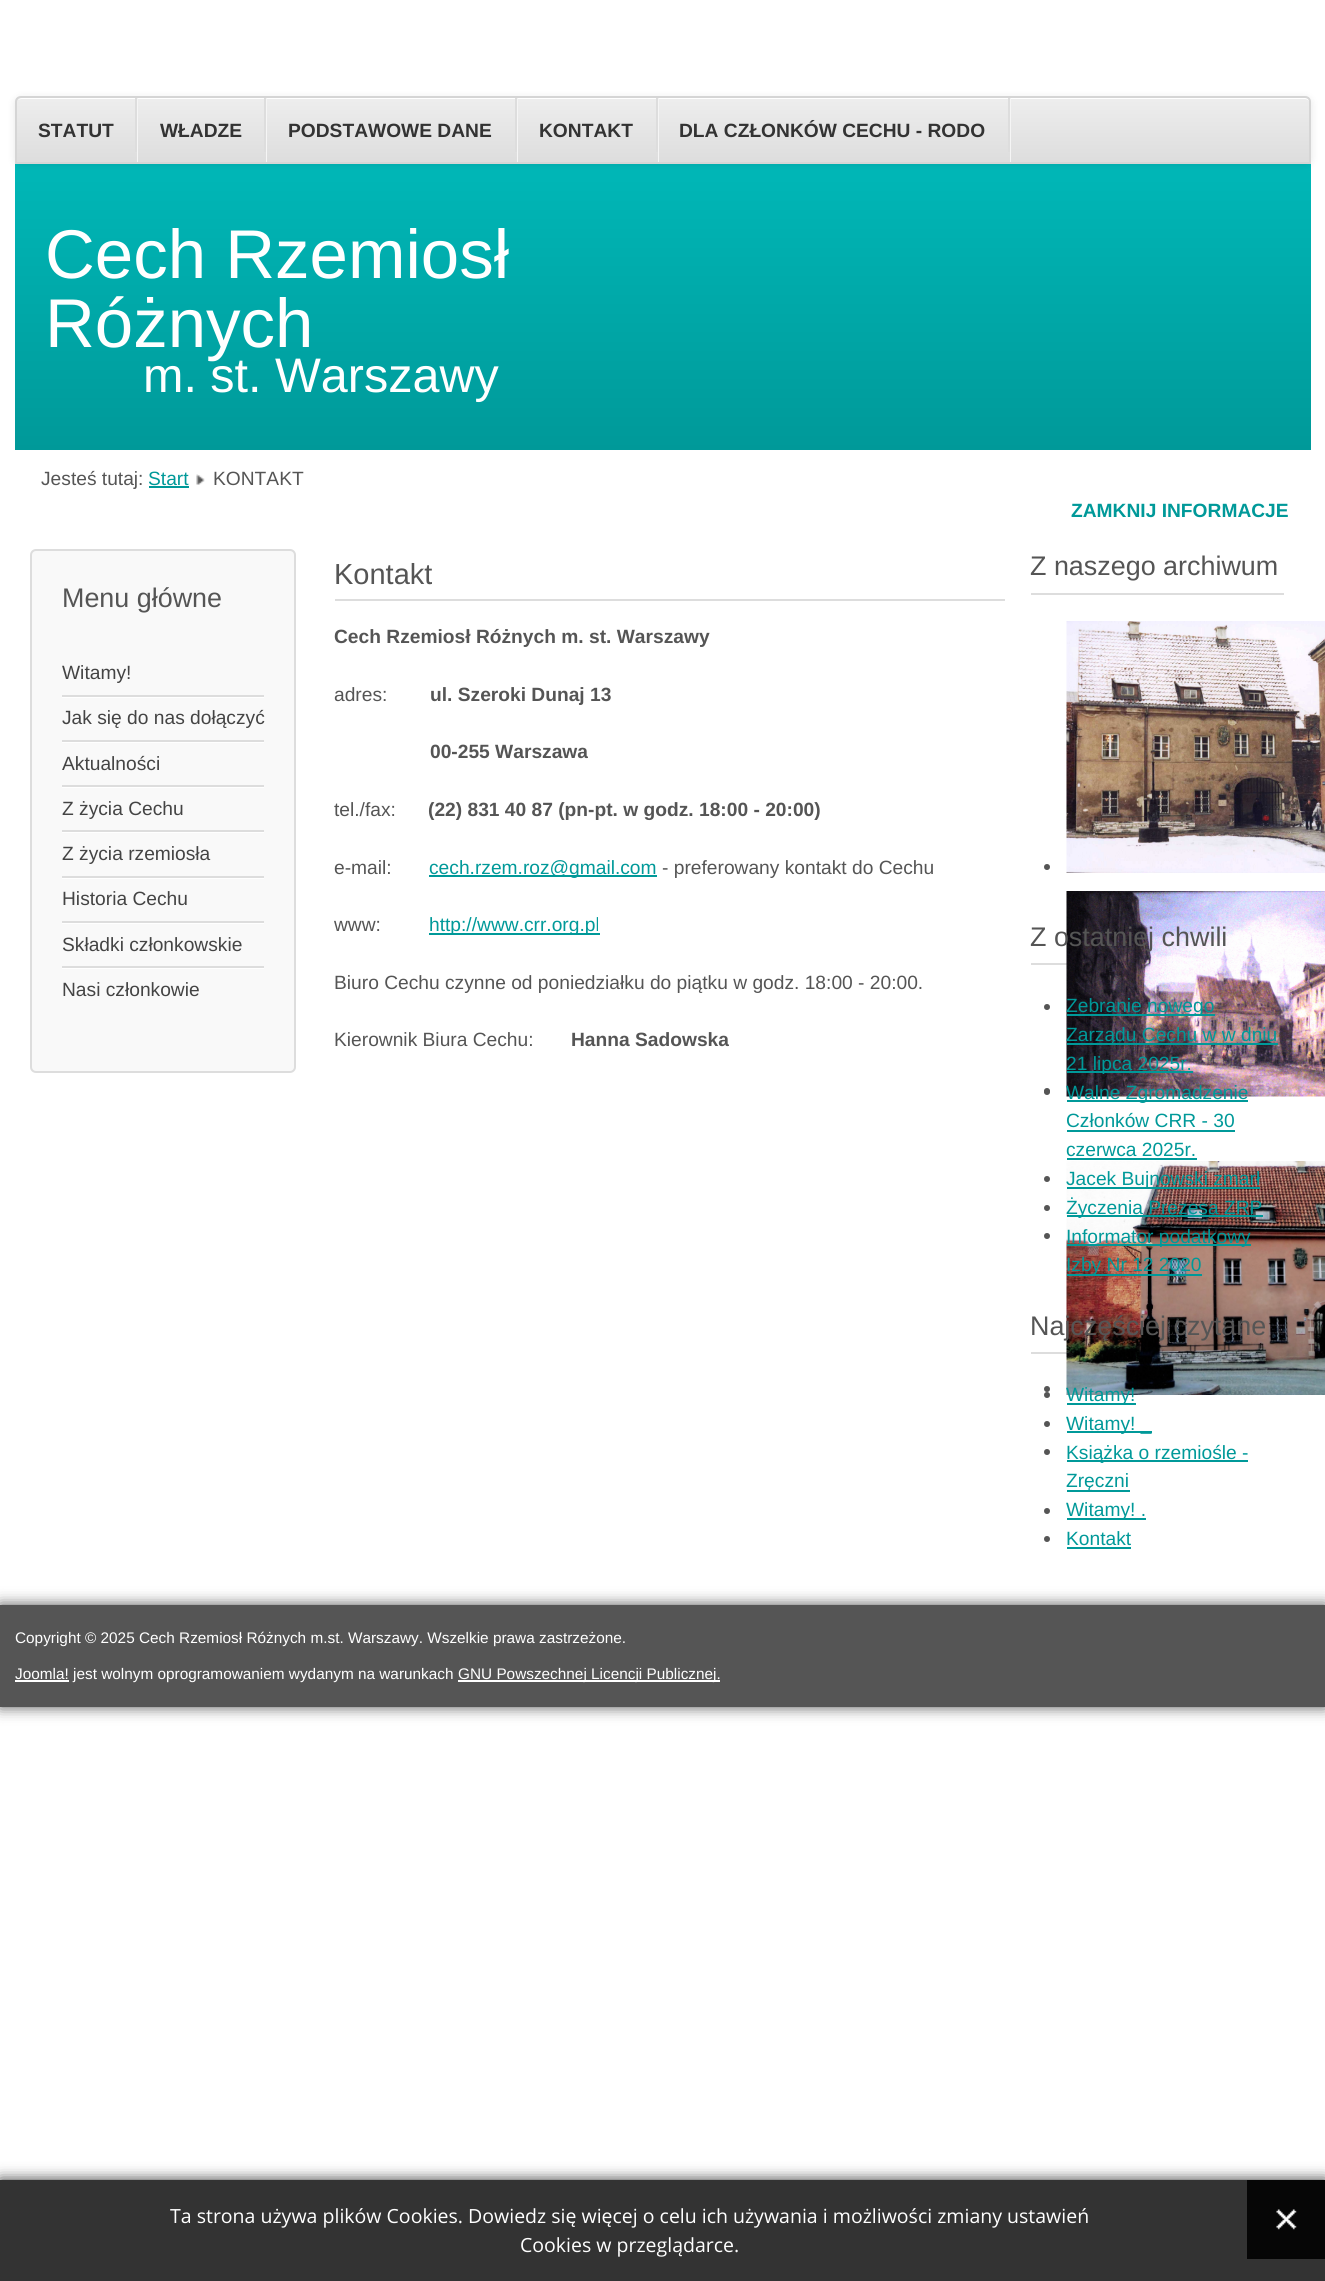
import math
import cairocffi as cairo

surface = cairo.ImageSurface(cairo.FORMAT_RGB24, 1325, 2281)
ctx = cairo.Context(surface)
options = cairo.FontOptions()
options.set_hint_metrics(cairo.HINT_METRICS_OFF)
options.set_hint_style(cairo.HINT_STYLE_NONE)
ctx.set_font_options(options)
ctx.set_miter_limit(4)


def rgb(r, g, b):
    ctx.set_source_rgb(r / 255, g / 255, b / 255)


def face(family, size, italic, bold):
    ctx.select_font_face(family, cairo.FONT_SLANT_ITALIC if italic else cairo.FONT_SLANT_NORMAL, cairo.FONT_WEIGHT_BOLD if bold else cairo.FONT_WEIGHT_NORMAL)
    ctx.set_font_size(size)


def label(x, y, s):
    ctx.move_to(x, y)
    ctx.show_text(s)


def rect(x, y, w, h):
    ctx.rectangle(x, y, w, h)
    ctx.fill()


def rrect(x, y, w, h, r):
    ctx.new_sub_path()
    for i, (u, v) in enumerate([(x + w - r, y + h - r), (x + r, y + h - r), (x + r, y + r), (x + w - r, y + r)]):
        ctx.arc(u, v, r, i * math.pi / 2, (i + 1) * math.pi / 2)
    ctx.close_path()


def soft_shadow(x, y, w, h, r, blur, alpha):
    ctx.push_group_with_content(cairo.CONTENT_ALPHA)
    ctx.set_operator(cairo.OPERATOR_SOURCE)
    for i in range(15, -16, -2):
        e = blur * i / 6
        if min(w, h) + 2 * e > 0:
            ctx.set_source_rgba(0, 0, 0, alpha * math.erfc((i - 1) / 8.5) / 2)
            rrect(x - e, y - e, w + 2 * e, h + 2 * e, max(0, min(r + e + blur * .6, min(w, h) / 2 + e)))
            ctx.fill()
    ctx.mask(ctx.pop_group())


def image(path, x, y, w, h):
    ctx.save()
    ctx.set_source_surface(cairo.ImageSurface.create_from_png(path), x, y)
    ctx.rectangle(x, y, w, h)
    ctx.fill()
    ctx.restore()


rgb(255, 255, 255)
ctx.paint()
gradient = cairo.LinearGradient(663, 150, 663, 450)
gradient.add_color_stop_rgba(0, 0, 0.725, 0.725, 1)
gradient.add_color_stop_rgba(1, 0, 0.6, 0.6, 1)
ctx.set_source(gradient)
rect(15, 164, 1296, 286)
rgb(0, 0, 0)
soft_shadow(15, 98, 1296, 67, 6, 4, 0.1)
ctx.save()
ctx.new_path()
ctx.move_to(21, 96)
ctx.line_to(1305, 96)
ctx.curve_to(1308.5, 96, 1311, 98.5, 1311, 102)
ctx.line_to(1311, 164)
ctx.line_to(15, 164)
ctx.line_to(15, 102)
ctx.curve_to(15, 98.5, 17.5, 96, 21, 96)
ctx.close_path()
ctx.clip()
gradient = cairo.LinearGradient(663, 97, 663, 162)
gradient.add_color_stop_rgba(0, 0.933, 0.933, 0.933, 1)
gradient.add_color_stop_rgba(1, 0.867, 0.867, 0.867, 1)
ctx.set_source(gradient)
rect(15, 98, 1296, 64)
ctx.restore()
rgb(255, 255, 255)
ctx.new_path()
ctx.move_to(21, 99)
ctx.line_to(1305, 99)
ctx.curve_to(1307, 99, 1310, 101, 1310, 104)
ctx.line_to(1310, 103)
ctx.curve_to(1310, 100, 1308, 98, 1305, 98)
ctx.line_to(22, 98)
ctx.curve_to(20, 98, 19, 99, 18, 100)
ctx.close_path()
ctx.fill()
ctx.new_path()
ctx.move_to(21, 97)
ctx.line_to(1305, 97)
ctx.curve_to(1308, 97, 1310, 99, 1310, 102)
ctx.line_to(1310, 163)
ctx.line_to(16, 163)
ctx.line_to(16, 102)
ctx.curve_to(16, 99, 18, 97, 21, 97)
ctx.close_path()
rgb(213, 213, 213)
ctx.stroke()
rgb(245, 245, 245)
rect(137, 98, 1, 64)
rgb(221, 221, 221)
rect(135, 98, 2, 54)
face('Liberation Sans', 19.2, 0, 1)
rgb(51, 51, 51)
label(38, 137, 'STATUT')
rgb(245, 245, 245)
rect(266, 98, 1, 64)
rgb(221, 221, 221)
rect(264, 98, 2, 54)
rgb(51, 51, 51)
label(160, 137, 'WŁADZE')
rgb(245, 245, 245)
rect(517, 98, 1, 64)
rgb(221, 221, 221)
rect(515, 98, 2, 54)
rgb(51, 51, 51)
label(288, 137, 'PODSTAWOWE DANE')
rgb(245, 245, 245)
rect(658, 98, 1, 64)
rgb(221, 221, 221)
rect(656, 98, 2, 54)
rgb(51, 51, 51)
label(539, 137, 'KONTAKT')
rgb(245, 245, 245)
rect(1010, 98, 1, 64)
rgb(221, 221, 221)
rect(1008, 98, 2, 54)
rgb(51, 51, 51)
label(679, 137, 'DLA CZŁONKÓW CECHU - RODO')
face('Liberation Sans', 69, 0, 0)
rgb(255, 255, 255)
label(45, 278, 'Cech Rzemiosł')
label(45, 347, 'Różnych')
face('Liberation Sans', 48.5, 0, 0)
label(143, 392, 'm. st. Warszawy')
face('Liberation Sans', 19.2, 0, 0)
rgb(85, 85, 85)
label(41, 485, 'Jesteś tutaj:')
rgb(0, 153, 153)
label(148, 485, 'Start')
rect(149, 486, 40, 2)
image('image0.png', 196, 474, 9, 11)
rgb(85, 85, 85)
label(213, 485, 'KONTAKT')
face('Liberation Sans', 19.2, 0, 1)
rgb(0, 153, 153)
label(1071, 517, 'ZAMKNIJ INFORMACJE')
rgb(249, 249, 249)
rrect(31, 550, 264, 522, 5)
ctx.fill_preserve()
rgb(221, 221, 221)
ctx.stroke()
face('Liberation Sans', 26.9, 0, 0)
rgb(85, 85, 85)
label(62, 607, 'Menu główne')
rgb(255, 255, 255)
rect(62, 697, 202, 1)
rgb(221, 221, 221)
rect(62, 695, 202, 2)
face('Liberation Sans', 19.2, 0, 0)
rgb(68, 68, 68)
label(62, 679, 'Witamy!')
rgb(255, 255, 255)
rect(62, 742, 202, 1)
rgb(221, 221, 221)
rect(62, 740, 202, 2)
rgb(68, 68, 68)
label(62, 724, 'Jak się do nas dołączyć')
rgb(255, 255, 255)
rect(62, 787, 202, 1)
rgb(221, 221, 221)
rect(62, 785, 202, 2)
rgb(68, 68, 68)
label(62, 770, 'Aktualności')
rgb(255, 255, 255)
rect(62, 832, 202, 1)
rgb(221, 221, 221)
rect(62, 830, 202, 2)
rgb(68, 68, 68)
label(62, 815, 'Z życia Cechu')
rgb(255, 255, 255)
rect(62, 878, 202, 1)
rgb(221, 221, 221)
rect(62, 876, 202, 2)
rgb(68, 68, 68)
label(62, 860, 'Z życia rzemiosła')
rgb(255, 255, 255)
rect(62, 923, 202, 1)
rgb(221, 221, 221)
rect(62, 921, 202, 2)
rgb(68, 68, 68)
label(62, 905, 'Historia Cechu')
rgb(255, 255, 255)
rect(62, 968, 202, 1)
rgb(221, 221, 221)
rect(62, 966, 202, 2)
rgb(68, 68, 68)
label(62, 951, 'Składki członkowskie')
label(62, 996, 'Nasi członkowie')
rgb(221, 221, 221)
rect(335, 599, 670, 2)
face('Liberation Sans', 29, 0, 0)
rgb(85, 85, 85)
label(334, 584, 'Kontakt')
face('Liberation Sans', 19.2, 0, 1)
label(334, 643, 'Cech Rzemiosł Różnych m. st. Warszawy')
face('Liberation Sans', 19.2, 0, 0)
label(334, 701, 'adres:')
face('Liberation Sans', 19.2, 0, 1)
label(430, 701, 'ul. Szeroki Dunaj 13')
label(430, 758, '00-255 Warszawa')
face('Liberation Sans', 19.2, 0, 0)
label(334, 816, 'tel./fax:')
face('Liberation Sans', 19.2, 0, 1)
label(428, 816, '(22) 831 40 87 (pn-pt. w godz. 18:00 - 20:00)')
face('Liberation Sans', 19.2, 0, 0)
label(334, 874, 'e-mail:')
rgb(0, 153, 153)
rect(429, 875, 228, 2)
label(429, 874, 'cech.rzem.roz@gmail.com')
rgb(85, 85, 85)
label(662, 874, '- preferowany kontakt do Cechu')
label(334, 931, 'www:')
rgb(0, 153, 153)
rect(429, 933, 171, 2)
label(429, 931, 'http://www.crr.org.pl')
rgb(85, 85, 85)
label(334, 989, 'Biuro Cechu czynne od poniedziałku do piątku w godz. 18:00 - 20:00.')
label(334, 1046, 'Kierownik Biura Cechu:')
face('Liberation Sans', 19.2, 0, 1)
label(571, 1046, 'Hanna Sadowska')
rgb(221, 221, 221)
rect(1031, 593, 253, 2)
face('Liberation Sans', 26.9, 0, 0)
rgb(85, 85, 85)
label(1030, 575, 'Z naszego archiwum')
ctx.new_path()
ctx.arc(1047, 867, 3, 0, 2 * math.pi)
ctx.fill()
image('image1.png', 1066, 621, 259, 252)
ctx.arc(1047, 1091, 3, 0, 2 * math.pi)
ctx.fill()
rgb(221, 221, 221)
rect(1031, 963, 36, 2)
image('image2.png', 1066, 891, 259, 206)
rgb(85, 85, 85)
ctx.arc(1047, 1389, 3, 0, 2 * math.pi)
ctx.fill()
rgb(221, 221, 221)
rect(1031, 1352, 36, 2)
image('image3.png', 1066, 1161, 259, 234)
rgb(85, 85, 85)
label(1030, 946, 'Z ostatniej chwili')
ctx.new_path()
ctx.arc(1047, 1007, 3, 0, 2 * math.pi)
ctx.fill()
rgb(0, 153, 153)
rect(1067, 1014, 148, 2)
face('Liberation Sans', 19.2, 0, 0)
label(1066, 1012, 'Zebranie nowego')
rect(1067, 1043, 211, 2)
label(1066, 1041, 'Zarządu Cechu w w dniu')
rect(1067, 1071, 126, 2)
label(1066, 1070, '21 lipca 2025r.')
rgb(85, 85, 85)
ctx.new_path()
ctx.arc(1047, 1092, 3, 0, 2 * math.pi)
ctx.fill()
rgb(0, 153, 153)
rect(1067, 1100, 181, 2)
label(1066, 1099, 'Walne Zgromadzenie')
label(1066, 1127, 'Członków CRR - 30')
rect(1067, 1130, 168, 2)
label(1066, 1156, 'czerwca 2025r.')
rect(1067, 1158, 130, 2)
rgb(85, 85, 85)
ctx.new_path()
ctx.arc(1047, 1179, 3, 0, 2 * math.pi)
ctx.fill()
rgb(0, 153, 153)
rect(1067, 1187, 193, 2)
label(1066, 1185, 'Jacek Bujnowski zmarł')
rgb(85, 85, 85)
ctx.new_path()
ctx.arc(1047, 1208, 3, 0, 2 * math.pi)
ctx.fill()
rgb(0, 153, 153)
rect(1067, 1215, 196, 2)
label(1066, 1214, 'Życzenia Prezesa ZRP')
rgb(85, 85, 85)
ctx.new_path()
ctx.arc(1047, 1236, 3, 0, 2 * math.pi)
ctx.fill()
rgb(0, 153, 153)
rect(1067, 1244, 184, 2)
label(1066, 1243, 'Informator podatkowy')
rect(1067, 1274, 135, 2)
label(1066, 1271, 'Izby Nr 12 2020')
face('Liberation Sans', 26.9, 0, 0)
rgb(85, 85, 85)
label(1030, 1335, 'Najczęściej czytane')
ctx.new_path()
ctx.arc(1047, 1395, 3, 0, 2 * math.pi)
ctx.fill()
rgb(0, 153, 153)
rect(1067, 1403, 69, 2)
face('Liberation Sans', 19.2, 0, 0)
label(1066, 1401, 'Witamy!')
rgb(85, 85, 85)
ctx.new_path()
ctx.arc(1047, 1424, 3, 0, 2 * math.pi)
ctx.fill()
rgb(0, 153, 153)
rect(1067, 1431, 85, 2)
label(1066, 1430, 'Witamy! _')
rgb(85, 85, 85)
ctx.new_path()
ctx.arc(1047, 1452, 3, 0, 2 * math.pi)
ctx.fill()
rgb(0, 153, 153)
rect(1067, 1460, 181, 2)
label(1066, 1459, 'Książka o rzemiośle -')
rect(1067, 1490, 63, 2)
label(1066, 1487, 'Zręczni')
rgb(85, 85, 85)
ctx.new_path()
ctx.arc(1047, 1511, 3, 0, 2 * math.pi)
ctx.fill()
rgb(0, 153, 153)
rect(1067, 1518, 79, 2)
label(1066, 1516, 'Witamy! .')
rgb(85, 85, 85)
ctx.new_path()
ctx.arc(1047, 1539, 3, 0, 2 * math.pi)
ctx.fill()
rgb(0, 153, 153)
label(1066, 1545, 'Kontakt')
rect(1067, 1547, 64, 2)
rgb(85, 85, 85)
soft_shadow(0, 1605, 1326, 102, 0, 7.5, 1)
rgb(85, 85, 85)
rect(0, 1605, 1325, 102)
face('Liberation Sans', 15.35, 0, 0)
rgb(255, 255, 255)
label(15, 1643, 'Copyright © 2025 Cech Rzemiosł Różnych m.st. Warszawy. Wszelkie prawa zastrzeżone.')
rect(15, 1680, 54, 2)
label(15, 1679, 'Joomla! jest wolnym oprogramowaniem wydanym na warunkach')
rect(458, 1680, 262, 2)
label(458, 1679, 'GNU Powszechnej Licencji Publicznej.')
rgb(0, 0, 0)
soft_shadow(0, 2180, 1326, 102, 0, 7.5, 0.8)
rgb(51, 51, 51)
rect(0, 2180, 1325, 101)
face('Open Sans', 19.5, 0, 0)
rgb(255, 255, 255)
label(170, 2223, 'Ta strona używa plików Cookies. Dowiedz się więcej o celu ich używania i możliwości zmiany ustawień')
label(520, 2252, 'Cookies w przeglądarce.')
rgb(6, 6, 6)
rect(1247, 2180, 78, 79)
image('image4.png', 1276, 2209, 21, 21)
surface.write_to_png('render.png')
